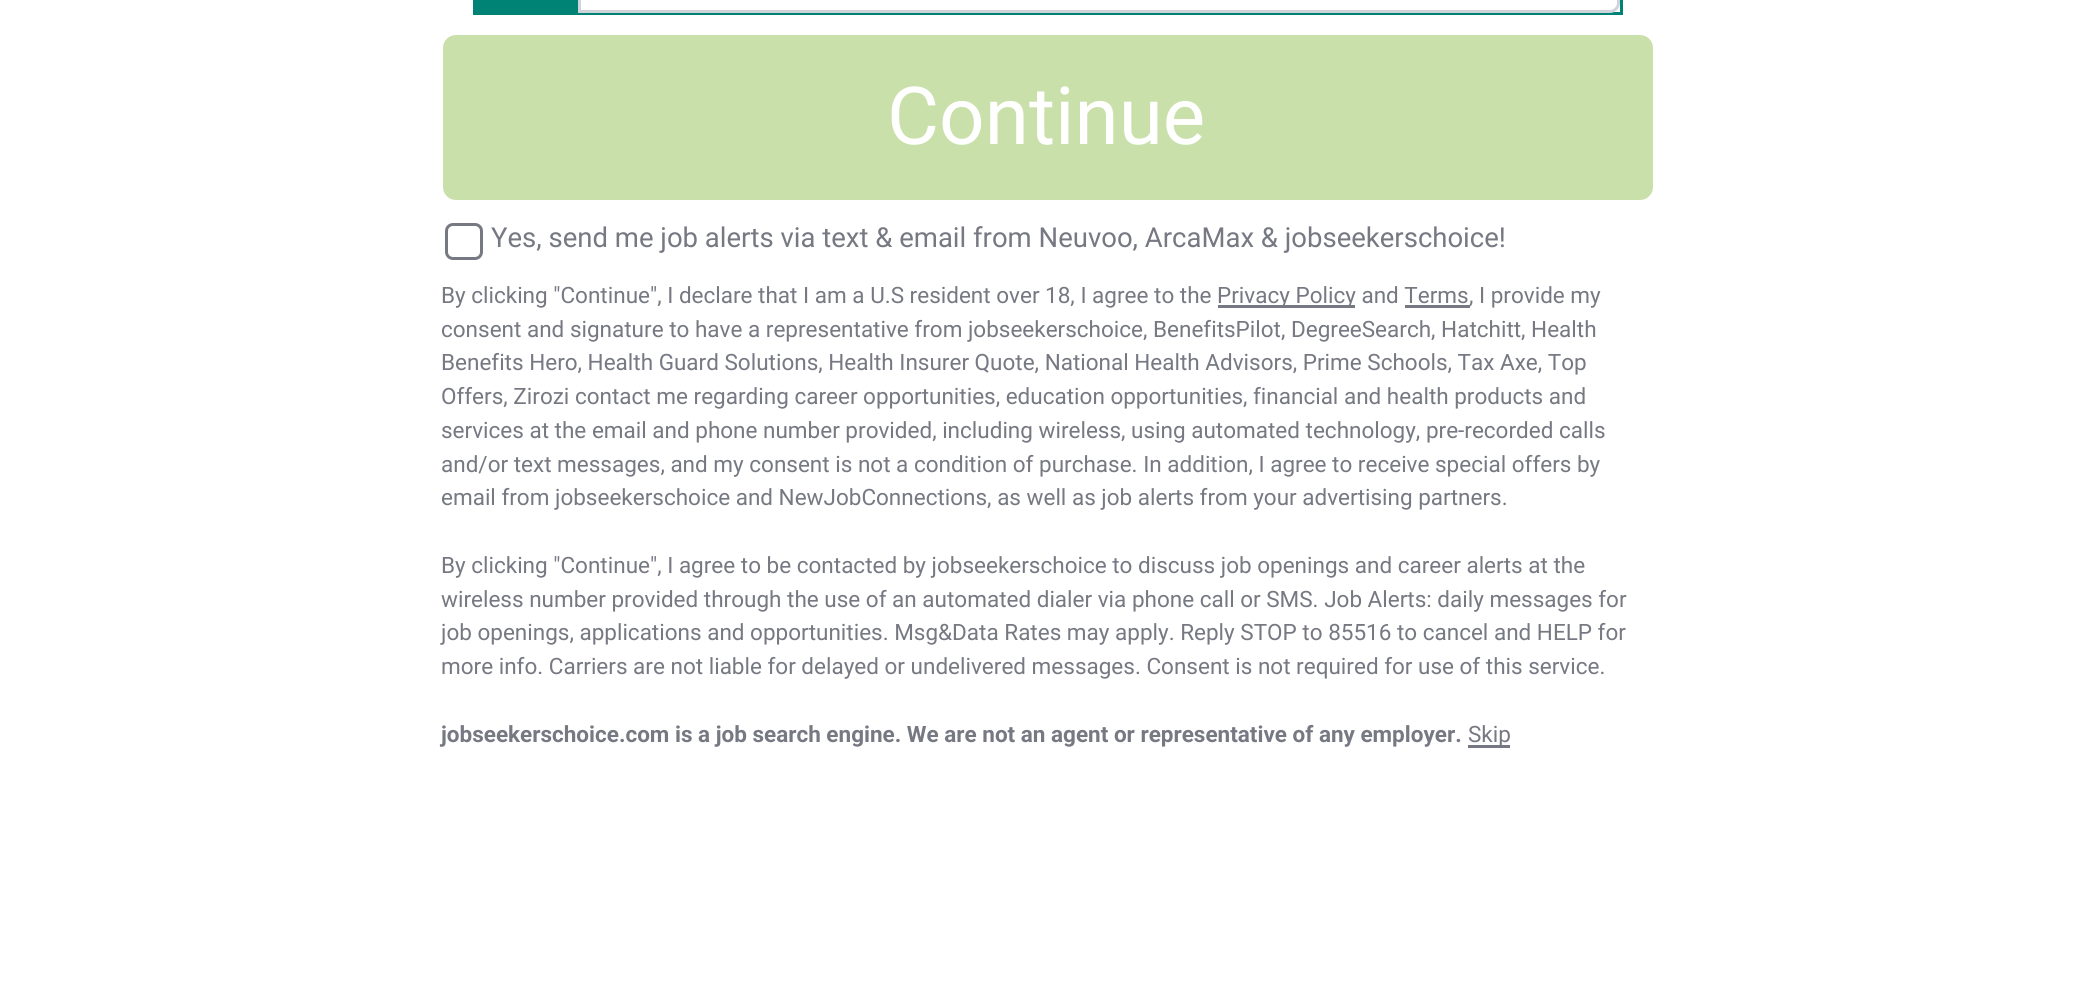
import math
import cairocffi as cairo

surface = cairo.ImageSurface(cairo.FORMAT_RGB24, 2092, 983)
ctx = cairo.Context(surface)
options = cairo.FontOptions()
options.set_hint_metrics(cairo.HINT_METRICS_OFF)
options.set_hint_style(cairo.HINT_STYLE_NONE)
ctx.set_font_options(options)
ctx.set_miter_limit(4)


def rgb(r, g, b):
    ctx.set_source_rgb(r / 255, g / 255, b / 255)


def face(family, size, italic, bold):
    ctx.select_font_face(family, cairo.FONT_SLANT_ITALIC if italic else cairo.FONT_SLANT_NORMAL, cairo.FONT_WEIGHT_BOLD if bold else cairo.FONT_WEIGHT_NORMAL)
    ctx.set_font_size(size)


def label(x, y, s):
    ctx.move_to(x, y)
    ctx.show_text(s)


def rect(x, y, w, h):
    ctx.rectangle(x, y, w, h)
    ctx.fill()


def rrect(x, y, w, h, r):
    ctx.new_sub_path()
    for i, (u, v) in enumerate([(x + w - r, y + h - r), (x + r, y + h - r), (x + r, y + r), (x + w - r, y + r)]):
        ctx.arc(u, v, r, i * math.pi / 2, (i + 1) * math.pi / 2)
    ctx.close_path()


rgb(255, 255, 255)
ctx.paint()
ctx.rectangle(474.5, -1.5, 1147, 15)
rgb(0, 131, 117)
ctx.set_line_width(3)
ctx.stroke()
ctx.rectangle(476.5, -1.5, 102, 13)
ctx.stroke()
rect(478, 0, 99, 10)
ctx.new_path()
ctx.move_to(579.5, -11.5)
ctx.line_to(1610, -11.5)
ctx.curve_to(1614.5, -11.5, 1618.5, -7.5, 1618.5, -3)
ctx.line_to(1618.5, 3)
ctx.curve_to(1618.5, 7.5, 1614.5, 11.5, 1610, 11.5)
ctx.line_to(579.5, 11.5)
ctx.close_path()
rgb(206, 212, 218)
ctx.stroke()
rgb(202, 224, 171)
rrect(444.5, 36.5, 1207, 162, 11.5)
ctx.fill_preserve()
ctx.stroke()
face('Roboto', 80, 0, 0)
rgb(255, 255, 255)
label(887, 144, 'Continue')
rrect(446.5, 224.5, 35, 34, 6.5)
rgb(118, 120, 130)
ctx.stroke()
face('Roboto', 27.5, 0, 0)
label(491, 247, 'Yes, send me job alerts via text & email from Neuvoo, ArcaMax & jobseekerschoice!')
face('Roboto', 22.5, 0, 0)
label(441, 303, 'By clicking "Continue", I declare that I am a U.S resident over 18, I agree to the')
rect(1218, 305, 137, 3)
label(1217, 303, 'Privacy Policy and Terms')
rect(1405, 305, 65, 3)
label(1469, 303, ', I provide my')
label(441, 337, 'consent and signature to have a representative from jobseekerschoice, BenefitsPilot, DegreeSearch, Hatchitt, Health')
label(441, 370, 'Benefits Hero, Health Guard Solutions, Health Insurer Quote, National Health Advisors, Prime Schools, Tax Axe, Top')
label(441, 404, 'Offers, Zirozi contact me regarding career opportunities, education opportunities, financial and health products and')
label(441, 438, 'services at the email and phone number provided, including wireless, using automated technology, pre-recorded calls')
label(441, 472, 'and/or text messages, and my consent is not a condition of purchase. In addition, I agree to receive special offers by')
label(441, 505, 'email from jobseekerschoice and NewJobConnections, as well as job alerts from your advertising partners.')
label(441, 573, 'By clicking "Continue", I agree to be contacted by jobseekerschoice to discuss job openings and career alerts at the')
label(441, 607, 'wireless number provided through the use of an automated dialer via phone call or SMS. Job Alerts: daily messages for')
label(441, 640, 'job openings, applications and opportunities. Msg&Data Rates may apply. Reply STOP to 85516 to cancel and HELP for')
label(441, 674, 'more info. Carriers are not liable for delayed or undelivered messages. Consent is not required for use of this service.')
face('Roboto', 22.5, 0, 1)
label(441, 742, 'jobseekerschoice.com is a job search engine. We are not an agent or representative of any employer.')
rect(1468, 745, 42, 3)
face('Roboto', 22.5, 0, 0)
label(1468, 742, 'Skip')
surface.write_to_png('render.png')
